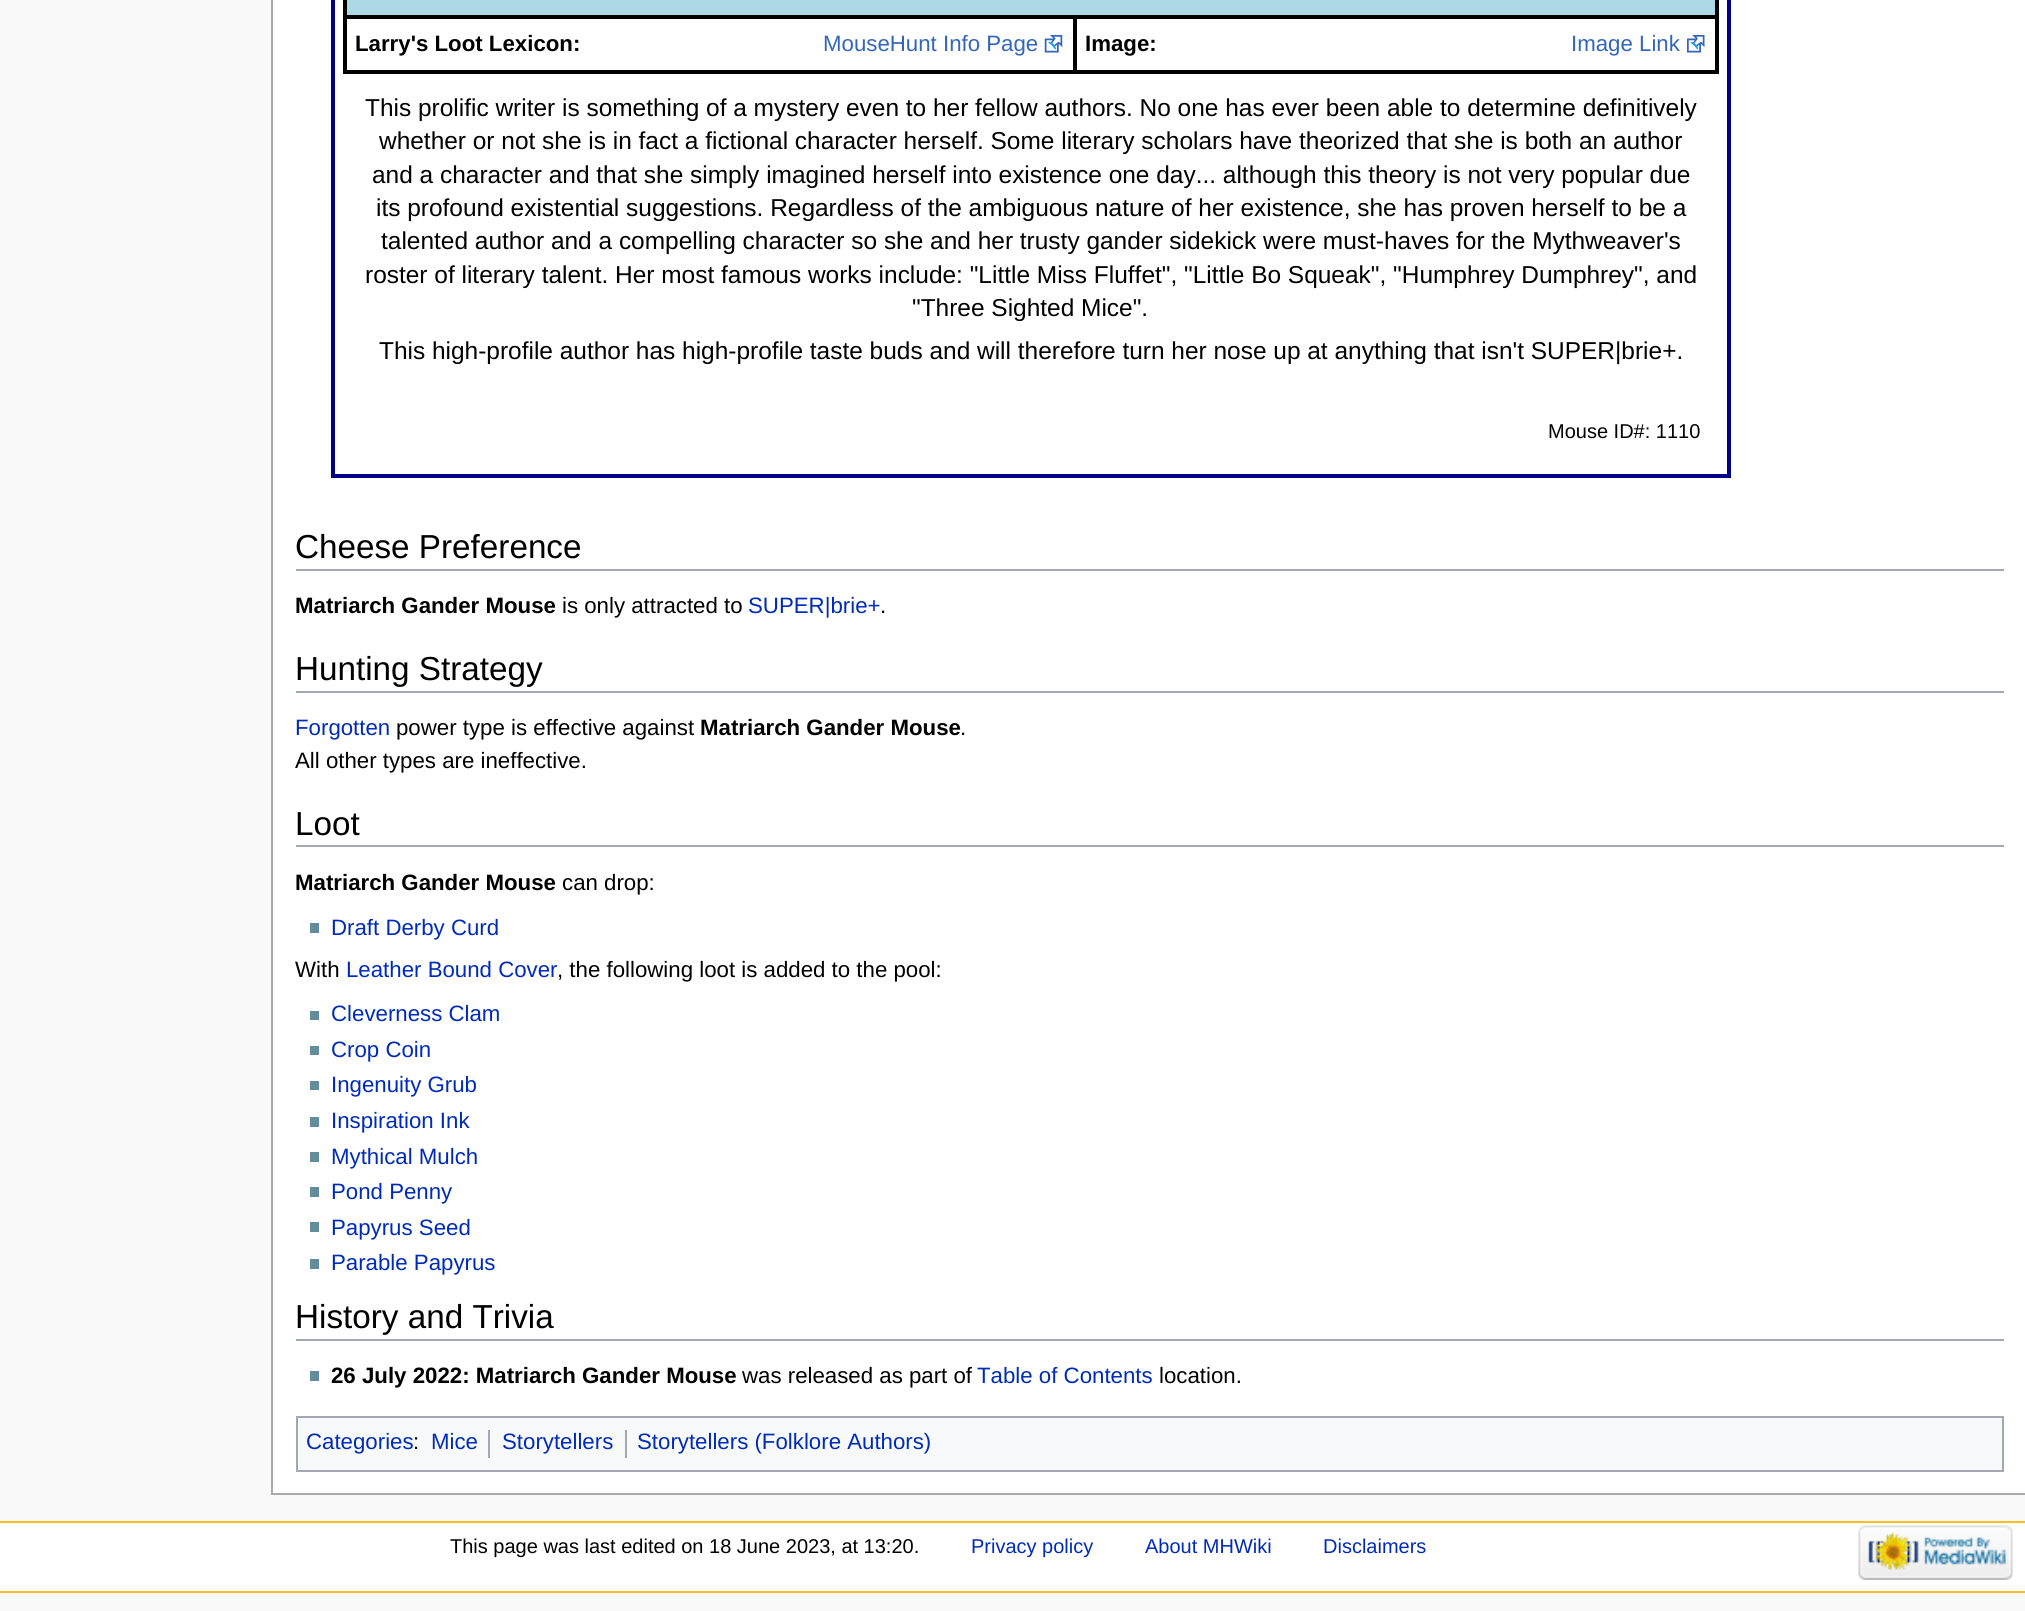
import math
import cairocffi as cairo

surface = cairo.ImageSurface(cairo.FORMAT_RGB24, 2025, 1611)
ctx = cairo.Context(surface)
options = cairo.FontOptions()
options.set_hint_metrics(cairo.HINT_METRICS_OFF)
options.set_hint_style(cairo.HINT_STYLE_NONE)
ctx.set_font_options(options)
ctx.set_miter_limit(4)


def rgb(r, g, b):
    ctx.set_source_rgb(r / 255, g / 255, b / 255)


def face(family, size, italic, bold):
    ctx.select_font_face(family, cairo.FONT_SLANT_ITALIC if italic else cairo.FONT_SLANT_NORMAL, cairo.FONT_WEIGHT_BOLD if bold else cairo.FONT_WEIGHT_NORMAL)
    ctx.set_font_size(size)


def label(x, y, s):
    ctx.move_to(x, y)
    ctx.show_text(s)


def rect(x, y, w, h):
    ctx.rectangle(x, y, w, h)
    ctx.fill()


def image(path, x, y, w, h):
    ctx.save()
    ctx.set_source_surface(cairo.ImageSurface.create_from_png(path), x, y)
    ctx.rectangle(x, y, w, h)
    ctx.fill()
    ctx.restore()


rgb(249, 249, 249)
ctx.paint()
rgb(255, 255, 255)
rect(273, 0, 1752, 1493)
rgb(170, 170, 170)
rect(271, 1493, 1754, 2)
rect(271, 0, 2, 1495)
rgb(0, 0, 139)
rect(1727, 0, 4, 478)
rect(331, 474, 1400, 4)
rect(331, 0, 4, 478)
rgb(173, 216, 230)
ctx.rectangle(345, -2, 1372, 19)
ctx.fill_preserve()
rgb(0, 0, 0)
ctx.set_line_width(4)
ctx.stroke()
rect(343, 70, 366, 4)
rect(343, 19, 4, 55)
face('Liberation Sans', 22.25, 0, 1)
label(355, 51, 'Larry\'s Loot Lexicon:')
rect(1073, 19, 2, 55)
rect(709, 70, 728, 4)
face('Liberation Sans', 22.25, 0, 0)
rgb(51, 102, 187)
label(823, 51, 'MouseHunt Info Page')
image('image0.png', 1044, 35, 19, 18)
rgb(0, 0, 0)
rect(1075, 19, 2, 55)
face('Liberation Sans', 22.25, 0, 1)
label(1085, 51, 'Image:')
rect(1715, 19, 4, 55)
rect(1437, 70, 282, 4)
face('Liberation Sans', 22.25, 0, 0)
rgb(51, 102, 187)
label(1571, 51, 'Image Link')
image('image1.png', 1687, 35, 18, 18)
face('Liberation Sans', 24.45, 0, 0)
rgb(0, 0, 0)
label(365, 116, 'This prolific writer is something of a mystery even to her fellow authors. No one has ever been able to determine definitively')
label(379, 149, 'whether or not she is in fact a fictional character herself. Some literary scholars have theorized that she is both an author')
label(372, 183, 'and a character and that she simply imagined herself into existence one day... although this theory is not very popular due')
label(376, 216, 'its profound existential suggestions. Regardless of the ambiguous nature of her existence, she has proven herself to be a')
label(381, 249, 'talented author and a compelling character so she and her trusty gander sidekick were must-haves for the Mythweaver\'s')
label(365, 283, 'roster of literary talent. Her most famous works include: "Little Miss Fluffet", "Little Bo Squeak", "Humphrey Dumphrey", and')
label(912, 316, '"Three Sighted Mice".')
label(379, 359, 'This high-profile author has high-profile taste buds and will therefore turn her nose up at anything that isn\'t SUPER|brie+.')
face('Liberation Sans', 20, 0, 0)
label(1548, 438, 'Mouse ID#: 1110')
rgb(162, 169, 177)
rect(296, 569, 1708, 2)
face('Liberation Sans', 33.25, 0, 0)
rgb(0, 0, 0)
label(295, 558, 'Cheese Preference')
face('Liberation Sans', 22.25, 0, 1)
label(295, 613, 'Matriarch Gander Mouse')
face('Liberation Sans', 22.25, 0, 0)
label(562, 613, 'is only attracted to')
rgb(0, 43, 184)
label(748, 613, 'SUPER|brie+')
rgb(0, 0, 0)
label(880, 613, '.')
rgb(162, 169, 177)
rect(296, 691, 1708, 2)
face('Liberation Sans', 33.25, 0, 0)
rgb(0, 0, 0)
label(295, 680, 'Hunting Strategy')
face('Liberation Sans', 22.25, 0, 0)
rgb(0, 43, 184)
label(295, 735, 'Forgotten')
rgb(0, 0, 0)
label(396, 735, 'power type is effective against')
face('Liberation Sans', 22.25, 0, 1)
label(700, 735, 'Matriarch Gander Mouse')
face('Liberation Sans', 22.25, 0, 0)
label(960, 735, '.')
label(295, 768, 'All other types are ineffective.')
rgb(162, 169, 177)
rect(296, 845, 1708, 2)
face('Liberation Sans', 33.25, 0, 0)
rgb(0, 0, 0)
label(295, 835, 'Loot')
face('Liberation Sans', 22.25, 0, 1)
label(295, 890, 'Matriarch Gander Mouse')
face('Liberation Sans', 22.25, 0, 0)
label(562, 890, 'can drop:')
rgb(99, 140, 156)
rect(310, 923, 9, 10)
rgb(0, 43, 184)
label(331, 935, 'Draft Derby Curd')
rgb(0, 0, 0)
label(295, 977, 'With')
rgb(0, 43, 184)
label(346, 977, 'Leather Bound Cover')
rgb(0, 0, 0)
label(557, 977, ', the following loot is added to the pool:')
rgb(99, 140, 156)
rect(310, 1011, 9, 9)
rgb(0, 43, 184)
label(331, 1021, 'Cleverness Clam')
rgb(99, 140, 156)
rect(310, 1046, 9, 9)
rgb(0, 43, 184)
label(331, 1057, 'Crop Coin')
rgb(99, 140, 156)
rect(310, 1081, 9, 9)
rgb(0, 43, 184)
label(331, 1092, 'Ingenuity Grub')
rgb(99, 140, 156)
rect(310, 1117, 9, 10)
rgb(0, 43, 184)
label(331, 1128, 'Inspiration Ink')
rgb(99, 140, 156)
rect(310, 1152, 9, 10)
rgb(0, 43, 184)
label(331, 1164, 'Mythical Mulch')
rgb(99, 140, 156)
rect(310, 1187, 9, 10)
rgb(0, 43, 184)
label(331, 1199, 'Pond Penny')
rgb(99, 140, 156)
rect(310, 1222, 9, 10)
rgb(0, 43, 184)
label(331, 1235, 'Papyrus Seed')
rgb(99, 140, 156)
rect(310, 1259, 9, 10)
rgb(0, 43, 184)
label(331, 1270, 'Parable Papyrus')
rgb(162, 169, 177)
rect(296, 1339, 1708, 2)
face('Liberation Sans', 33.25, 0, 0)
rgb(0, 0, 0)
label(295, 1328, 'History and Trivia')
rgb(99, 140, 156)
rect(310, 1371, 9, 10)
face('Liberation Sans', 22.25, 0, 1)
rgb(0, 0, 0)
label(331, 1383, '26 July 2022: Matriarch Gander Mouse')
face('Liberation Sans', 22.25, 0, 0)
label(742, 1383, 'was released as part of')
rgb(0, 43, 184)
label(977, 1383, 'Table of Contents')
rgb(0, 0, 0)
label(1159, 1383, 'location.')
rgb(248, 249, 250)
ctx.rectangle(297, 1417, 1706, 54)
ctx.fill_preserve()
rgb(162, 169, 177)
ctx.set_line_width(2)
ctx.stroke()
rgb(0, 43, 184)
label(306, 1449, 'Categories')
rgb(0, 0, 0)
label(413, 1449, ':')
rgb(0, 43, 184)
label(431, 1449, 'Mice')
rgb(162, 169, 177)
rect(488, 1430, 2, 28)
rgb(0, 43, 184)
label(502, 1449, 'Storytellers')
rgb(162, 169, 177)
rect(625, 1430, 2, 28)
rgb(0, 43, 184)
label(637, 1449, 'Storytellers (Folklore Authors)')
rgb(255, 255, 255)
rect(0, 1523, 2025, 68)
rgb(250, 189, 35)
rect(0, 1521, 2025, 2)
rect(0, 1591, 2025, 2)
face('Liberation Sans', 20, 0, 0)
rgb(0, 0, 0)
label(450, 1553, 'This page was last edited on 18 June 2023, at 13:20.')
rgb(0, 43, 184)
label(971, 1553, 'Privacy policy')
label(1145, 1553, 'About MHWiki')
label(1323, 1553, 'Disclaimers')
image('image2.png', 1858, 1525, 155, 55)
surface.write_to_png('render.png')
